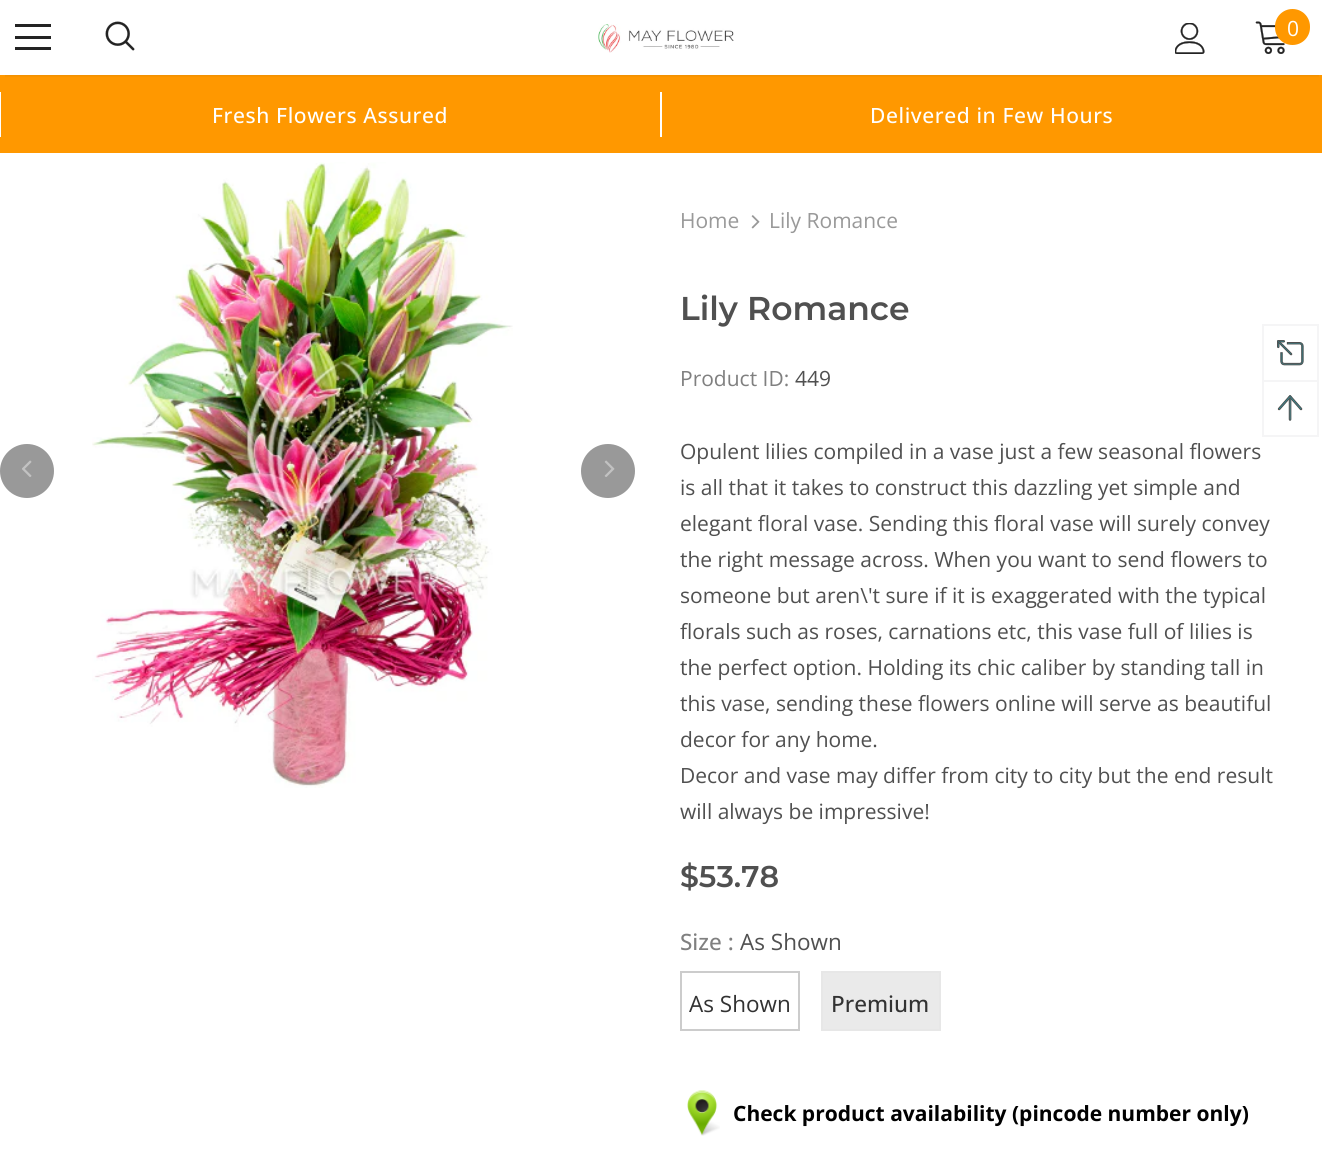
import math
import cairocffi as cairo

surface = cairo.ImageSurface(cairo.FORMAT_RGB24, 1322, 1150)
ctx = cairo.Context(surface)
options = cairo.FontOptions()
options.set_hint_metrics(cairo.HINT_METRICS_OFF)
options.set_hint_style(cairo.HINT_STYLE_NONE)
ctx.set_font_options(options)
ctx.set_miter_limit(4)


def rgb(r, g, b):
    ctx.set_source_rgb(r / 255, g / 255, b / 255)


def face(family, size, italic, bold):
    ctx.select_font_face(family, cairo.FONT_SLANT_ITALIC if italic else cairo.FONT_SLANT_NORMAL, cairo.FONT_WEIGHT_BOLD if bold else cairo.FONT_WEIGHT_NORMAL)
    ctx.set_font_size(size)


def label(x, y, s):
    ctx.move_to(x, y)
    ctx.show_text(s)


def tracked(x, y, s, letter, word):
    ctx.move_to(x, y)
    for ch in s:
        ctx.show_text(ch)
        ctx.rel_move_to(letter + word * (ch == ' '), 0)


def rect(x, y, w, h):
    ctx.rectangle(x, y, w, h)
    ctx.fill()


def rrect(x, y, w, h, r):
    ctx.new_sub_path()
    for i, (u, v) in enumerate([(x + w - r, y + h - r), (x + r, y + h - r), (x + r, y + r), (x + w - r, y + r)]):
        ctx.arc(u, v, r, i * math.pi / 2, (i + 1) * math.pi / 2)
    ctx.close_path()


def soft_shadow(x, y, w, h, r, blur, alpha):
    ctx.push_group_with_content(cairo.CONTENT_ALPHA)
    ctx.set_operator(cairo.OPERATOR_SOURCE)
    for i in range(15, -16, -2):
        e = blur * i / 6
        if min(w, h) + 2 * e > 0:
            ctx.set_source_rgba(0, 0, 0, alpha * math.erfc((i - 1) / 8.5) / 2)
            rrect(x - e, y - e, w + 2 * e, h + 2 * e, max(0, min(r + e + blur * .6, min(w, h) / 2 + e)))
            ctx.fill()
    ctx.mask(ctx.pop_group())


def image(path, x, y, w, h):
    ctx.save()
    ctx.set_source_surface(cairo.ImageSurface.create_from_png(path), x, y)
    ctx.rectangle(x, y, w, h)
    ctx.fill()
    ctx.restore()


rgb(255, 255, 255)
ctx.paint()
rgb(255, 152, 0)
rect(0, 75, 1322, 78)
ctx.save()
ctx.rectangle(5, 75, 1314, 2)
ctx.clip()
rgb(0, 0, 0)
soft_shadow(5, 9, 1314, 66, 0, 2, 0.12)
ctx.restore()
rgb(35, 35, 35)
rect(15, 24, 36, 3)
rect(15, 36, 36, 3)
rect(15, 47, 36, 3)
image('image0.png', 105, 21, 30, 30)
image('image1.png', 598, 24, 136, 29)
image('image2.png', 1175, 23, 30, 31)
image('image3.png', 1255, 21, 30, 33)
rgb(255, 152, 0)
rrect(1275, 9, 35, 36, 17.5)
ctx.fill()
face('Open Sans', 21, 0, 0)
rgb(255, 255, 255)
label(1287, 36, '0')
rect(0, 92, 1, 45)
face('Open Sans Medium', 21, 0, 0)
tracked(212, 123, 'Fresh Flowers Assured', 0.6, 0)
rect(660, 92, 2, 45)
tracked(870, 123, 'Delivered in Few Hours', 0.6, 0)
rgb(153, 153, 153)
ctx.new_path()
ctx.arc(27, 471, 26, 0, 2 * math.pi)
ctx.fill_preserve()
ctx.stroke()
image('image4.png', 22, 460, 10, 17)
image('image5.png', 92, 162, 421, 626)
ctx.arc(608, 471, 26, 0, 2 * math.pi)
ctx.fill_preserve()
ctx.stroke()
image('image6.png', 604, 460, 11, 17)
face('Open Sans', 21, 0, 0)
label(680, 228, 'Home')
image('image7.png', 751, 215, 9, 14)
label(769, 228, 'Lily Romance')
face('Montserrat SemiBold', 33, 0, 0)
rgb(80, 80, 80)
label(680, 320, 'Lily Romance')
face('Open Sans', 21, 0, 0)
rgb(128, 128, 128)
label(680, 386, 'Product ID:')
rgb(80, 80, 80)
label(795, 386, '449')
label(680, 459, 'Opulent lilies compiled in a vase just a few seasonal flowers')
label(680, 495, 'is all that it takes to construct this dazzling yet simple and')
label(680, 531, 'elegant floral vase. Sending this floral vase will surely convey')
label(680, 567, 'the right message across. When you want to send flowers to')
label(680, 603, 'someone but aren\\\'t sure if it is exaggerated with the typical')
label(680, 639, 'florals such as roses, carnations etc, this vase full of lilies is')
label(680, 675, 'the perfect option. Holding its chic caliber by standing tall in')
label(680, 711, 'this vase, sending these flowers online will serve as beautiful')
label(680, 747, 'decor for any home.')
label(680, 783, 'Decor and vase may differ from city to city but the end result')
label(680, 819, 'will always be impressive!')
face('Montserrat SemiBold', 30, 0, 0)
label(680, 887, '$53.78')
face('Open Sans Medium', 22.5, 0, 0)
rgb(128, 128, 128)
label(680, 950, 'Size :')
face('Open Sans', 22.5, 0, 0)
rgb(80, 80, 80)
label(740, 950, 'As Shown')
ctx.rectangle(681, 972, 118, 58)
rgb(204, 204, 204)
ctx.stroke()
rgb(50, 50, 50)
label(689, 1012, 'As Shown')
rgb(234, 234, 234)
ctx.rectangle(822, 972, 118, 58)
ctx.fill_preserve()
rgb(231, 231, 231)
ctx.stroke()
face('Open Sans Medium', 22.5, 0, 0)
rgb(50, 50, 50)
label(831, 1012, 'Premium')
image('image8.png', 687, 1090, 33, 46)
face('Open Sans', 21, 0, 1)
rgb(0, 0, 0)
label(733, 1121, 'Check product availability (pincode number only)')
rgb(245, 245, 246)
rect(1262, 324, 57, 2)
rect(1317, 324, 2, 56)
rect(1262, 324, 2, 56)
image('image9.png', 1277, 340, 27, 26)
ctx.rectangle(1263, 381, 55, 55)
ctx.stroke()
image('image10.png', 1277, 395, 26, 26)
surface.write_to_png('render.png')
